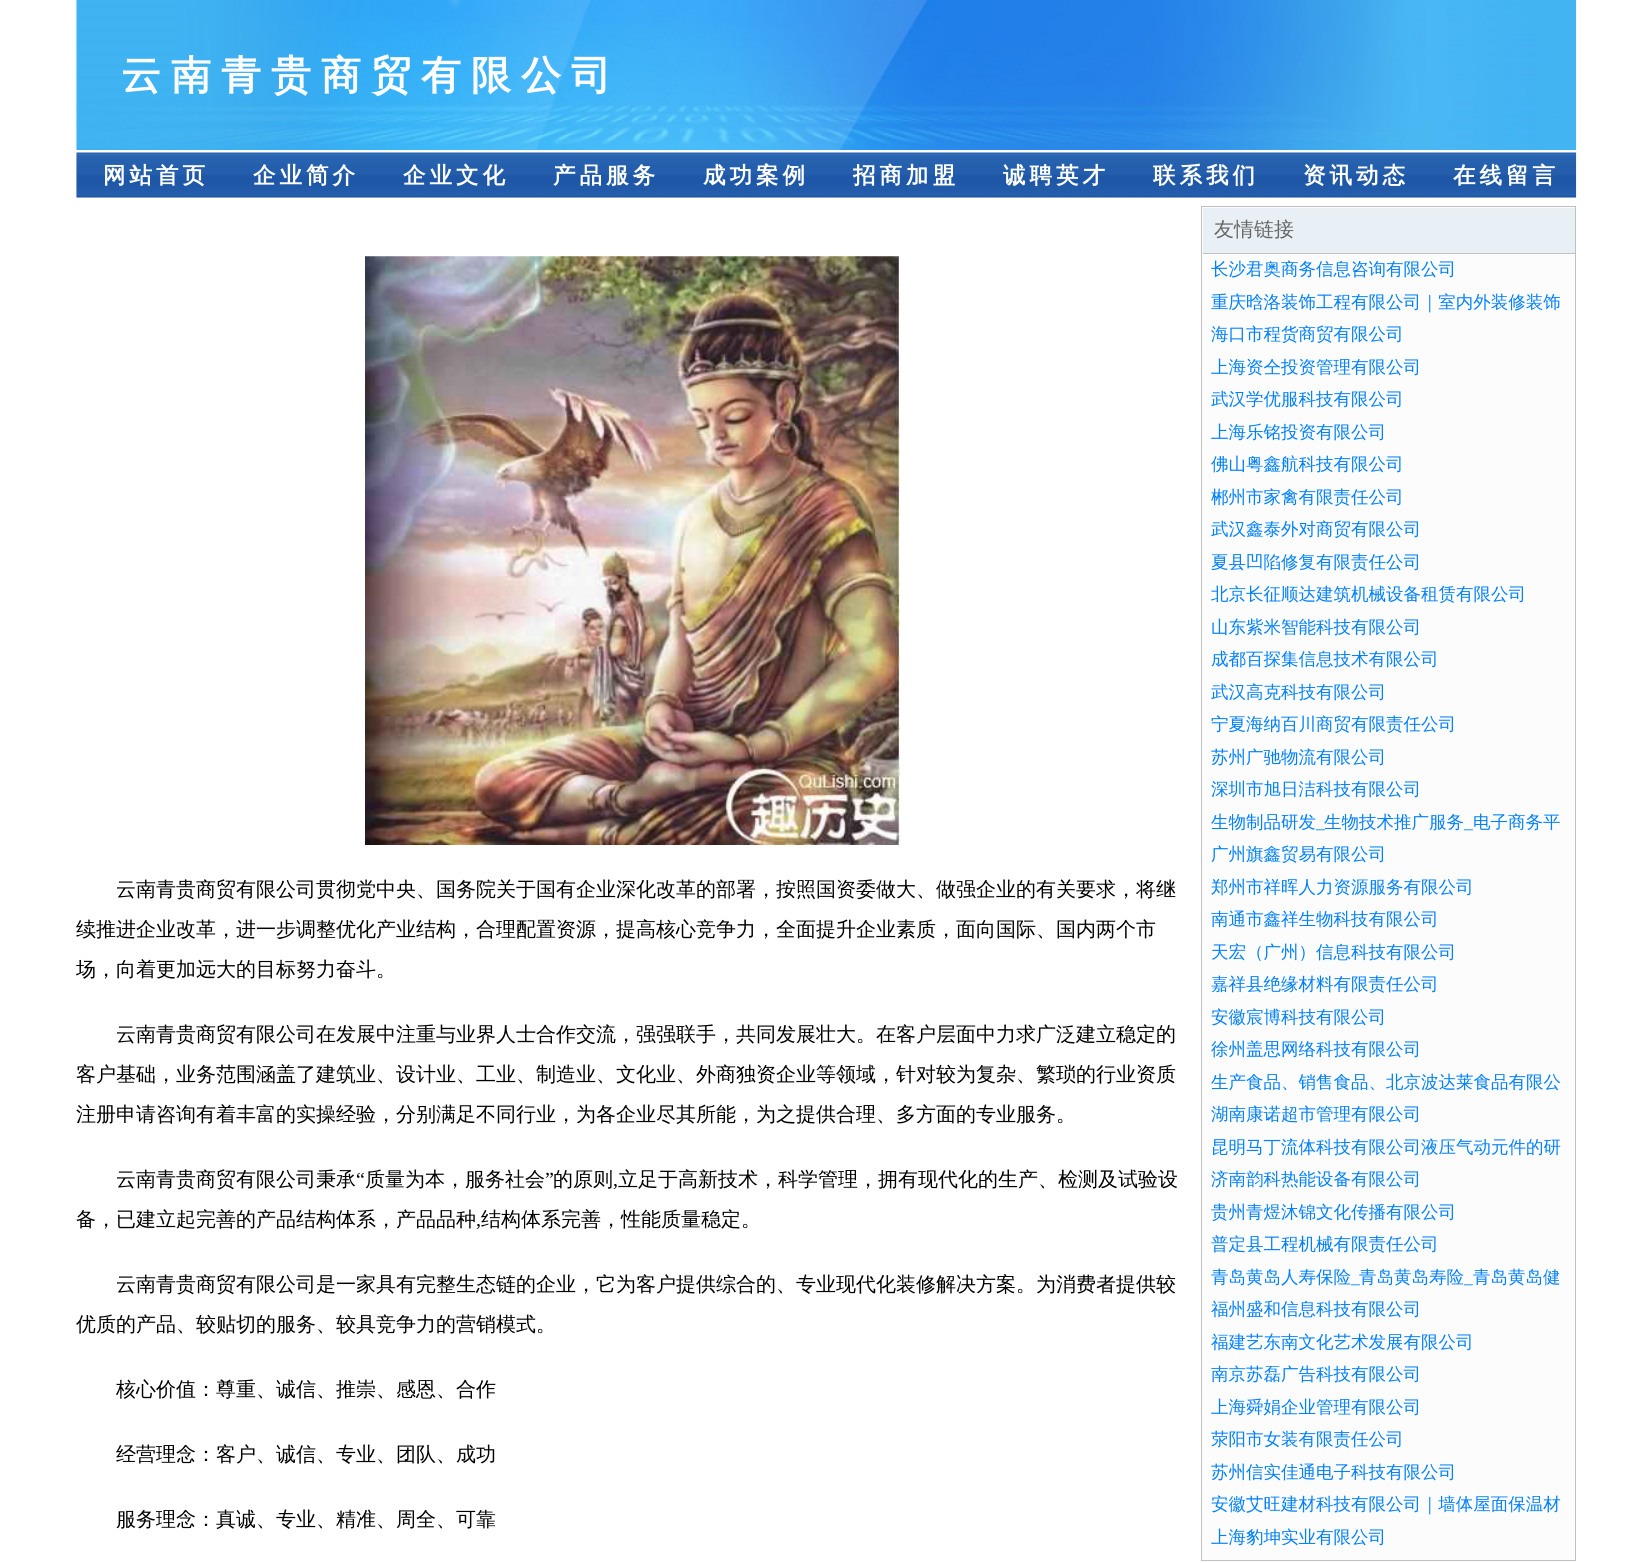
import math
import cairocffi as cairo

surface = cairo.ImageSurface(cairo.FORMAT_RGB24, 1651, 1563)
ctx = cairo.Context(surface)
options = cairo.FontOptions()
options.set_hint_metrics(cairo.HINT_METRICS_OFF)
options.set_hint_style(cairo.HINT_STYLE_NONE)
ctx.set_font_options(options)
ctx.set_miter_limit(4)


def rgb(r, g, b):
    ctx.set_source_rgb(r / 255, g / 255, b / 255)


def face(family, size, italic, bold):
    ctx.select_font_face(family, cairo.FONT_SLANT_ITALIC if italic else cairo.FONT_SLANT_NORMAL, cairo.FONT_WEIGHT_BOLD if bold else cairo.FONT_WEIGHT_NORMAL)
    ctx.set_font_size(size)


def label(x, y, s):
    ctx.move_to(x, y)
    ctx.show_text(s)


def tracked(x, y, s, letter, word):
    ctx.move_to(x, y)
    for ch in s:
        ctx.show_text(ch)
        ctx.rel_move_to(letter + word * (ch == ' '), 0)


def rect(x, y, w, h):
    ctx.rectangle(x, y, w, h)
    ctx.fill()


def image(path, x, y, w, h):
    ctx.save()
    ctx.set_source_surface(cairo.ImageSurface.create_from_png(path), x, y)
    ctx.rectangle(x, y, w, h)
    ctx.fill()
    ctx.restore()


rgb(255, 255, 255)
ctx.paint()
image('image0.png', 76, 0, 1501, 150)
face('WenQuanYi Zen Hei', 40, 0, 1)
rgb(255, 255, 255)
tracked(121, 89, '云南青贵商贸有限公司', 10, 0)
image('image1.png', 76, 152, 1501, 46)
face('WenQuanYi Zen Hei', 22.5, 0, 1)
tracked(103, 183, '网站首页', 4, 0)
tracked(253, 183, '企业简介', 4, 0)
tracked(403, 183, '企业文化', 4, 0)
tracked(553, 183, '产品服务', 4, 0)
tracked(703, 183, '成功案例', 4, 0)
tracked(853, 183, '招商加盟', 4, 0)
tracked(1003, 183, '诚聘英才', 4, 0)
tracked(1153, 183, '联系我们', 4, 0)
tracked(1303, 183, '资讯动态', 4, 0)
tracked(1453, 183, '在线留言', 4, 0)
image('image2.png', 365, 256, 535, 589)
face('WenQuanYi Zen Hei Medium', 20, 0, 0)
rgb(0, 0, 0)
label(116, 896, '云南青贵商贸有限公司贯彻党中央、国务院关于国有企业深化改革的部署，按照国资委做大、做强企业的有关要求，将继')
label(76, 936, '续推进企业改革，进一步调整优化产业结构，合理配置资源，提高核心竞争力，全面提升企业素质，面向国际、国内两个市')
label(76, 976, '场，向着更加远大的目标努力奋斗。')
label(116, 1041, '云南青贵商贸有限公司在发展中注重与业界人士合作交流，强强联手，共同发展壮大。在客户层面中力求广泛建立稳定的')
label(76, 1081, '客户基础，业务范围涵盖了建筑业、设计业、工业、制造业、文化业、外商独资企业等领域，针对较为复杂、繁琐的行业资质')
label(76, 1121, '注册申请咨询有着丰富的实操经验，分别满足不同行业，为各企业尽其所能，为之提供合理、多方面的专业服务。')
label(116, 1186, '云南青贵商贸有限公司秉承')
face('Liberation Serif', 20, 0, 0)
label(356, 1186, '“')
face('WenQuanYi Zen Hei Medium', 20, 0, 0)
label(365, 1186, '质量为本，服务社会')
face('Liberation Serif', 20, 0, 0)
label(545, 1186, '”')
face('WenQuanYi Zen Hei Medium', 20, 0, 0)
label(553, 1186, '的原则')
label(618, 1186, '立足于高新技术，科学管理，拥有现代化的生产、检测及试验设')
face('Liberation Serif', 20, 0, 0)
label(613, 1186, ',')
face('WenQuanYi Zen Hei Medium', 20, 0, 0)
label(76, 1226, '备，已建立起完善的产品结构体系，产品品种')
face('Liberation Serif', 20, 0, 0)
label(476, 1226, ',')
face('WenQuanYi Zen Hei Medium', 20, 0, 0)
label(481, 1226, '结构体系完善，性能质量稳定。')
label(116, 1291, '云南青贵商贸有限公司是一家具有完整生态链的企业，它为客户提供综合的、专业现代化装修解决方案。为消费者提供较')
label(76, 1331, '优质的产品、较贴切的服务、较具竞争力的营销模式。')
label(116, 1396, '核心价值：尊重、诚信、推崇、感恩、合作')
label(116, 1461, '经营理念：客户、诚信、专业、团队、成功')
label(116, 1526, '服务理念：真诚、专业、精准、周全、可靠')
rgb(252, 252, 252)
ctx.rectangle(1201.5, 206.5, 374, 1354)
ctx.fill_preserve()
rgb(192, 192, 192)
ctx.set_line_width(1)
ctx.stroke()
rgb(232, 239, 245)
rect(1203, 208, 372, 45)
rgb(192, 192, 192)
rect(1203, 253, 372, 1)
rgb(102, 102, 102)
label(1214, 236, '友情链接')
face('WenQuanYi Zen Hei Medium', 17.5, 0, 0)
rgb(0, 128, 255)
label(1211, 275, '长沙君奥商务信息咨询有限公司')
label(1211, 308, '重庆晗洛装饰工程有限公司｜室内外装修装饰')
label(1211, 340, '海口市程货商贸有限公司')
label(1211, 373, '上海资仝投资管理有限公司')
label(1211, 405, '武汉学优服科技有限公司')
label(1211, 438, '上海乐铭投资有限公司')
label(1211, 470, '佛山粤鑫航科技有限公司')
label(1211, 503, '郴州市家禽有限责任公司')
label(1211, 535, '武汉鑫泰外对商贸有限公司')
label(1211, 568, '夏县凹陷修复有限责任公司')
label(1211, 600, '北京长征顺达建筑机械设备租赁有限公司')
label(1211, 633, '山东紫米智能科技有限公司')
label(1211, 665, '成都百探集信息技术有限公司')
label(1211, 698, '武汉高克科技有限公司')
label(1211, 730, '宁夏海纳百川商贸有限责任公司')
label(1211, 763, '苏州广驰物流有限公司')
label(1211, 795, '深圳市旭日洁科技有限公司')
label(1211, 828, '生物制品研发')
face('Liberation Serif', 17.5, 0, 0)
label(1316, 828, '_')
face('WenQuanYi Zen Hei Medium', 17.5, 0, 0)
label(1324, 828, '生物技术推广服务')
face('Liberation Serif', 17.5, 0, 0)
label(1464, 828, '_')
face('WenQuanYi Zen Hei Medium', 17.5, 0, 0)
label(1473, 828, '电子商务平')
label(1211, 860, '广州旗鑫贸易有限公司')
label(1211, 893, '郑州市祥晖人力资源服务有限公司')
label(1211, 925, '南通市鑫祥生物科技有限公司')
label(1211, 958, '天宏（广州）信息科技有限公司')
label(1211, 990, '嘉祥县绝缘材料有限责任公司')
label(1211, 1023, '安徽宸博科技有限公司')
label(1211, 1055, '徐州盖思网络科技有限公司')
label(1211, 1088, '生产食品、销售食品、北京波达莱食品有限公')
label(1211, 1120, '湖南康诺超市管理有限公司')
label(1211, 1153, '昆明马丁流体科技有限公司液压气动元件的研')
label(1211, 1185, '济南韵科热能设备有限公司')
label(1211, 1218, '贵州青煜沐锦文化传播有限公司')
label(1211, 1250, '普定县工程机械有限责任公司')
label(1211, 1283, '青岛黄岛人寿保险')
face('Liberation Serif', 17.5, 0, 0)
label(1351, 1283, '_')
face('WenQuanYi Zen Hei Medium', 17.5, 0, 0)
label(1359, 1283, '青岛黄岛寿险')
face('Liberation Serif', 17.5, 0, 0)
label(1464, 1283, '_')
face('WenQuanYi Zen Hei Medium', 17.5, 0, 0)
label(1473, 1283, '青岛黄岛健')
label(1211, 1315, '福州盛和信息科技有限公司')
label(1211, 1348, '福建艺东南文化艺术发展有限公司')
label(1211, 1380, '南京苏磊广告科技有限公司')
label(1211, 1413, '上海舜娟企业管理有限公司')
label(1211, 1445, '荥阳市女装有限责任公司')
label(1211, 1478, '苏州信实佳通电子科技有限公司')
label(1211, 1510, '安徽艾旺建材科技有限公司｜墙体屋面保温材')
label(1211, 1543, '上海豹坤实业有限公司')
surface.write_to_png('render.png')
